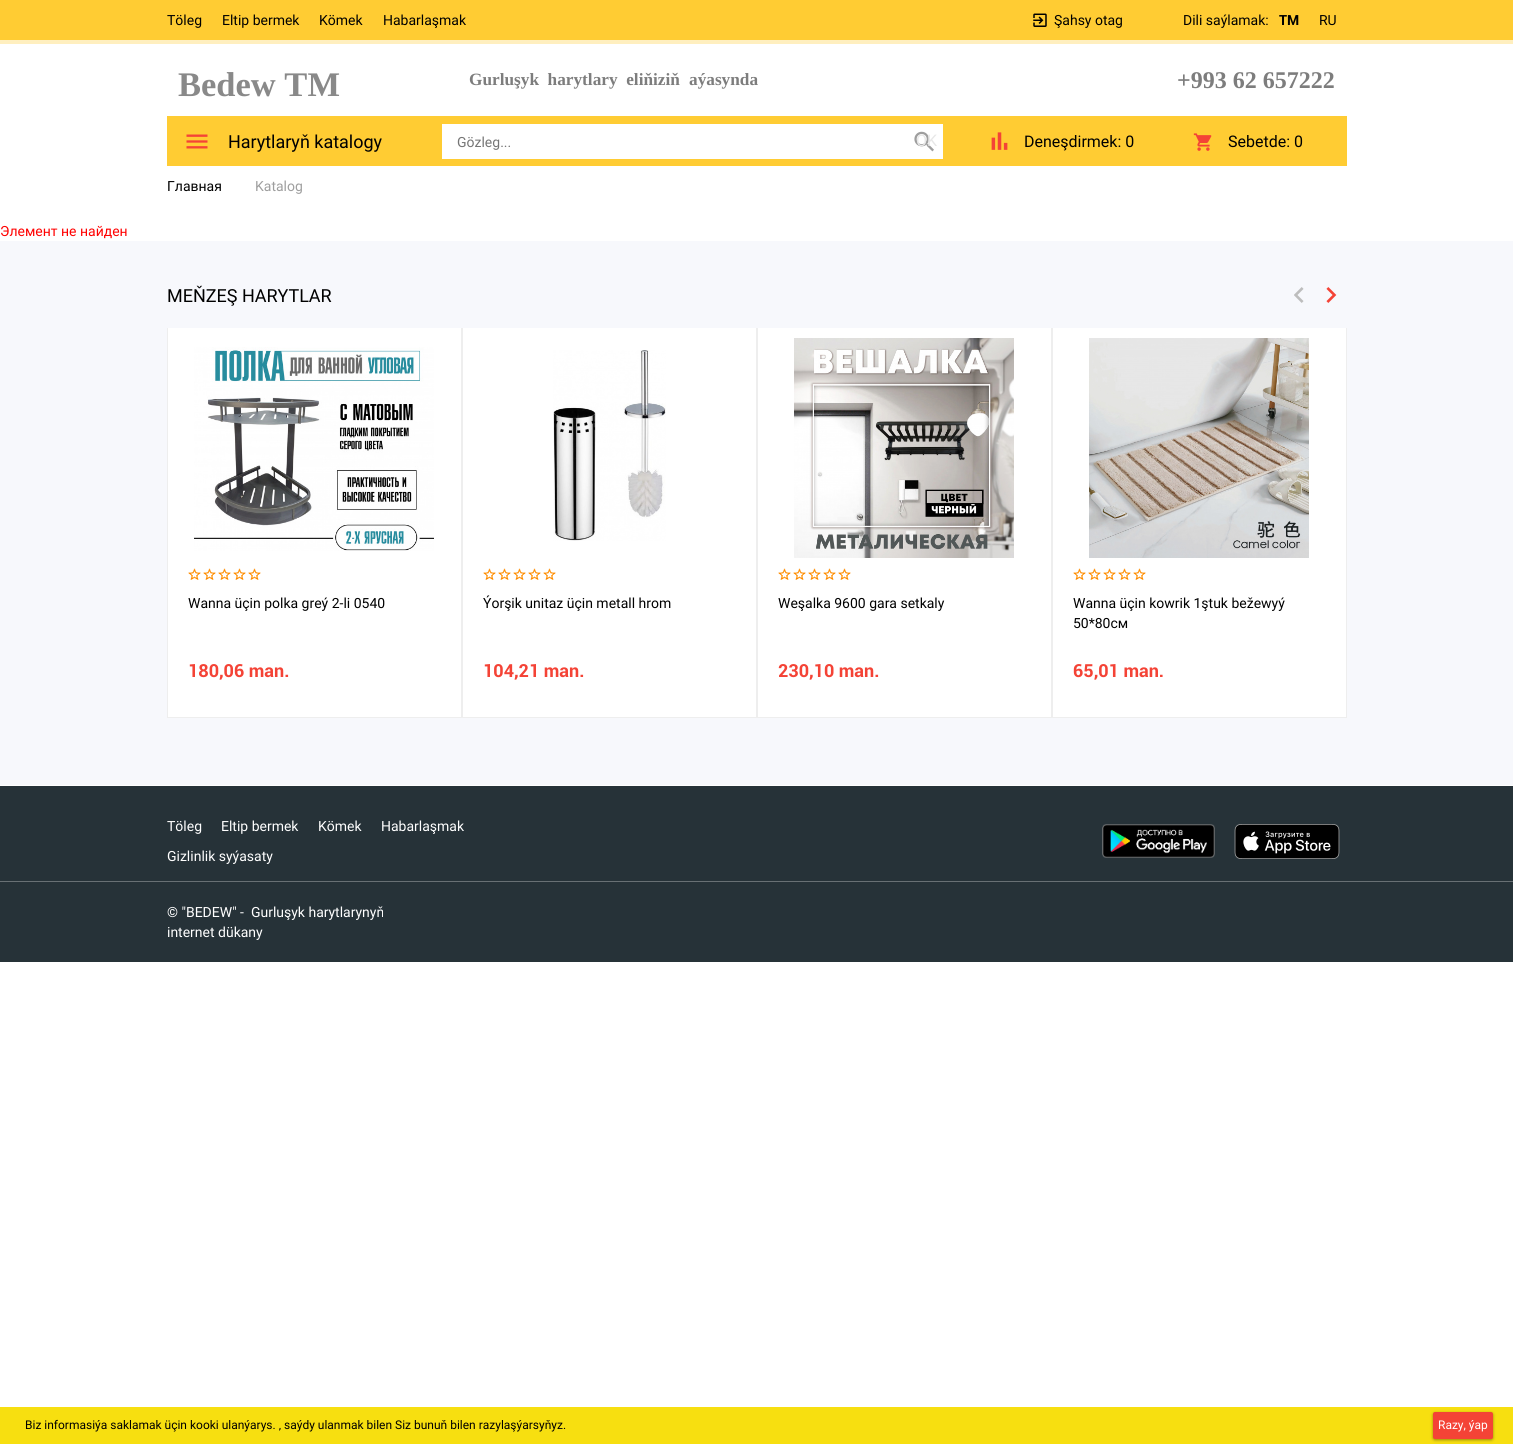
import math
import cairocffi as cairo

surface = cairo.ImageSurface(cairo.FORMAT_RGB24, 1513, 1444)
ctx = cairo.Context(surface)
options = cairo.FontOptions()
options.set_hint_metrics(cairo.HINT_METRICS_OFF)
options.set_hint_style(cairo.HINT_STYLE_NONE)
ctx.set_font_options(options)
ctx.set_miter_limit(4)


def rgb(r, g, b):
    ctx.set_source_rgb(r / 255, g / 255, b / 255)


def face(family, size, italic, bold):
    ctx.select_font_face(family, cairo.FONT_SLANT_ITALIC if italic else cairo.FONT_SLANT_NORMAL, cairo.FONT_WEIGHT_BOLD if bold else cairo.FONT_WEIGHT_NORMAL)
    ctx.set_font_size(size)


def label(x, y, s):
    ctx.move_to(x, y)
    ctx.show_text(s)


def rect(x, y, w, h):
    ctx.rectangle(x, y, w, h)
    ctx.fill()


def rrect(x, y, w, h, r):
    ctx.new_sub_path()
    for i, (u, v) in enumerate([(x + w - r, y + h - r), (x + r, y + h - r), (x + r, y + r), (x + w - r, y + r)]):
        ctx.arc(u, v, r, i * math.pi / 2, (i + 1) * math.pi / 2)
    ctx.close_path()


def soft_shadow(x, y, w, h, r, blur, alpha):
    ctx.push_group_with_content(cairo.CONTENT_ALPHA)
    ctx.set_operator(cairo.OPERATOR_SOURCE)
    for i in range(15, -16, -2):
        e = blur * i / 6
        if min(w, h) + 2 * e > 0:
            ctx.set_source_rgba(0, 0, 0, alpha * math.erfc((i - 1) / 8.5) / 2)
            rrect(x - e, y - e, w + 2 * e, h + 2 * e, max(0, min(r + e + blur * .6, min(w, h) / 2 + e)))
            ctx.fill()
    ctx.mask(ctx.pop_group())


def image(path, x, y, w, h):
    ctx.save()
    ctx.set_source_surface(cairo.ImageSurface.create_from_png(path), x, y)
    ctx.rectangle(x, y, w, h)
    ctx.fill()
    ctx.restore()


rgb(255, 255, 255)
ctx.paint()
rgb(255, 204, 51)
rect(0, 0, 1513, 40)
rgb(255, 239, 191)
rect(0, 40, 1513, 4)
face('Roboto', 14, 0, 0)
rgb(0, 0, 0)
label(167, 25, 'Töleg')
label(222, 25, 'Eltip bermek')
label(319, 25, 'Kömek')
label(383, 25, 'Habarlaşmak')
image('image0.png', 1033, 13, 14, 14)
label(1054, 25, 'Şahsy otag')
label(1183, 25, 'Dili saýlamak:')
face('roboto', 14, 0, 1)
label(1279, 25, 'TM')
face('Roboto', 14, 0, 0)
label(1319, 25, 'RU')
face('Liberation Serif', 34.5, 0, 1)
rgb(137, 137, 137)
label(178, 96, 'Bedew TM')
face('Liberation Serif', 17.25, 0, 1)
rgb(125, 125, 125)
label(469, 85, 'Gurluşyk  harytlary  eliňiziň')
label(689, 85, 'aýasynda')
face('Liberation Serif', 24, 0, 1)
label(1177, 88, '+993 62 657222')
rgb(255, 204, 51)
rect(167, 116, 1180, 50)
image('image1.png', 186, 134, 22, 15)
face('Roboto', 18, 0, 0)
rgb(0, 0, 0)
label(228, 148, 'Harytlaryň katalogy')
rgb(255, 255, 255)
rect(442, 124, 501, 35)
image('image2.png', 914, 131, 20, 21)
face('Roboto', 14, 0, 0)
rgb(117, 117, 117)
label(457, 147, 'Gözleg...')
face('Roboto', 16, 0, 0)
rgb(231, 231, 231)
label(916, 146, 'OK')
image('image3.png', 991, 132, 17, 18)
rgb(0, 0, 0)
label(1024, 147, 'Deneşdirmek: 0')
image('image4.png', 1193, 133, 19, 18)
label(1228, 147, 'Sebetde: 0')
face('Roboto', 14, 0, 0)
label(167, 191, 'Главная')
rgb(158, 158, 158)
label(255, 191, 'Katalog')
rgb(255, 0, 0)
label(0, 236, 'Элемент не найден')
rgb(247, 248, 252)
rect(0, 241, 1513, 544)
face('Roboto', 18, 0, 0)
rgb(0, 0, 0)
label(167, 302, 'MEŇZEŞ HARYTLAR')
image('image5.png', 1294, 287, 10, 16)
image('image6.png', 1326, 287, 11, 16)
rgb(255, 255, 255)
rect(168, 328, 293, 389)
rgb(238, 238, 238)
rect(461, 328, 1, 390)
rect(167, 717, 295, 1)
rect(167, 328, 1, 390)
image('image7.png', 194, 347, 240, 204)
image('image8.png', 188, 568, 13, 12)
image('image8.png', 203, 568, 13, 12)
image('image8.png', 218, 568, 13, 12)
image('image8.png', 233, 568, 13, 12)
image('image8.png', 248, 568, 13, 12)
face('Roboto', 14, 0, 0)
rgb(0, 0, 0)
label(188, 608, 'Wanna üçin polka greý 2-li 0540')
face('roboto', 18, 0, 1)
rgb(244, 67, 54)
label(188, 677, '180,06 man.')
rgb(255, 255, 255)
rect(463, 328, 293, 389)
rgb(238, 238, 238)
rect(756, 328, 1, 390)
rect(462, 717, 295, 1)
rect(462, 328, 1, 390)
image('image9.png', 553, 350, 113, 191)
image('image8.png', 483, 568, 13, 12)
image('image8.png', 498, 568, 13, 12)
image('image8.png', 513, 568, 13, 12)
image('image8.png', 528, 568, 13, 12)
image('image8.png', 543, 568, 13, 12)
face('Roboto', 14, 0, 0)
rgb(0, 0, 0)
label(483, 608, 'Ýorşik unitaz üçin metall hrom')
face('roboto', 18, 0, 1)
rgb(244, 67, 54)
label(483, 677, '104,21 man.')
rgb(255, 255, 255)
rect(758, 328, 293, 389)
rgb(238, 238, 238)
rect(1051, 328, 1, 390)
rect(757, 717, 295, 1)
rect(757, 328, 1, 390)
image('image10.png', 794, 338, 220, 220)
image('image8.png', 778, 568, 13, 12)
image('image8.png', 793, 568, 13, 12)
image('image8.png', 808, 568, 13, 12)
image('image8.png', 823, 568, 13, 12)
image('image8.png', 838, 568, 13, 12)
face('Roboto', 14, 0, 0)
rgb(0, 0, 0)
label(778, 608, 'Weşalka 9600 gara setkaly')
face('roboto', 18, 0, 1)
rgb(244, 67, 54)
label(778, 677, '230,10 man.')
rgb(255, 255, 255)
rect(1053, 328, 293, 389)
rgb(238, 238, 238)
rect(1346, 328, 1, 390)
rect(1052, 717, 295, 1)
rect(1052, 328, 1, 390)
image('image11.png', 1089, 338, 220, 220)
image('image8.png', 1073, 568, 13, 12)
image('image8.png', 1088, 568, 13, 12)
image('image8.png', 1103, 568, 13, 12)
image('image8.png', 1118, 568, 13, 12)
image('image8.png', 1133, 568, 13, 12)
face('Roboto', 14, 0, 0)
rgb(0, 0, 0)
label(1073, 608, 'Wanna üçin kowrik 1ştuk bežewyý')
label(1073, 628, '50*80см')
face('roboto', 18, 0, 1)
rgb(244, 67, 54)
label(1073, 677, '65,01 man.')
rgb(38, 50, 56)
rect(0, 786, 1513, 176)
rgb(104, 112, 116)
rect(0, 881, 1513, 1)
face('Roboto', 14, 0, 0)
rgb(255, 255, 255)
label(167, 831, 'Töleg')
label(221, 831, 'Eltip bermek')
label(318, 831, 'Kömek')
label(381, 831, 'Habarlaşmak')
label(167, 861, 'Gizlinlik syýasaty')
image('image12.png', 1102, 824, 113, 34)
image('image13.png', 1234, 824, 106, 35)
label(167, 917, '© "BEDEW" -  Gurluşyk harytlarynyň')
label(167, 937, 'internet dükany')
rgb(247, 223, 16)
rect(0, 1407, 1513, 37)
face('Roboto', 12, 0, 0)
rgb(0, 0, 0)
label(25, 1429, 'Biz informasiýa saklamak üçin kooki ulanýarys. ‚ saýdy ulanmak bilen Siz bunuň bilen razylaşýarsyňyz.')
rgb(0, 0, 0)
soft_shadow(1433, 1413, 60, 27, 2, 1.5, 0.4)
rgb(244, 67, 54)
rrect(1433, 1412, 60, 27, 2)
ctx.fill()
rgb(255, 255, 255)
label(1438, 1429, 'Razy, ýap')
surface.write_to_png('render.png')
